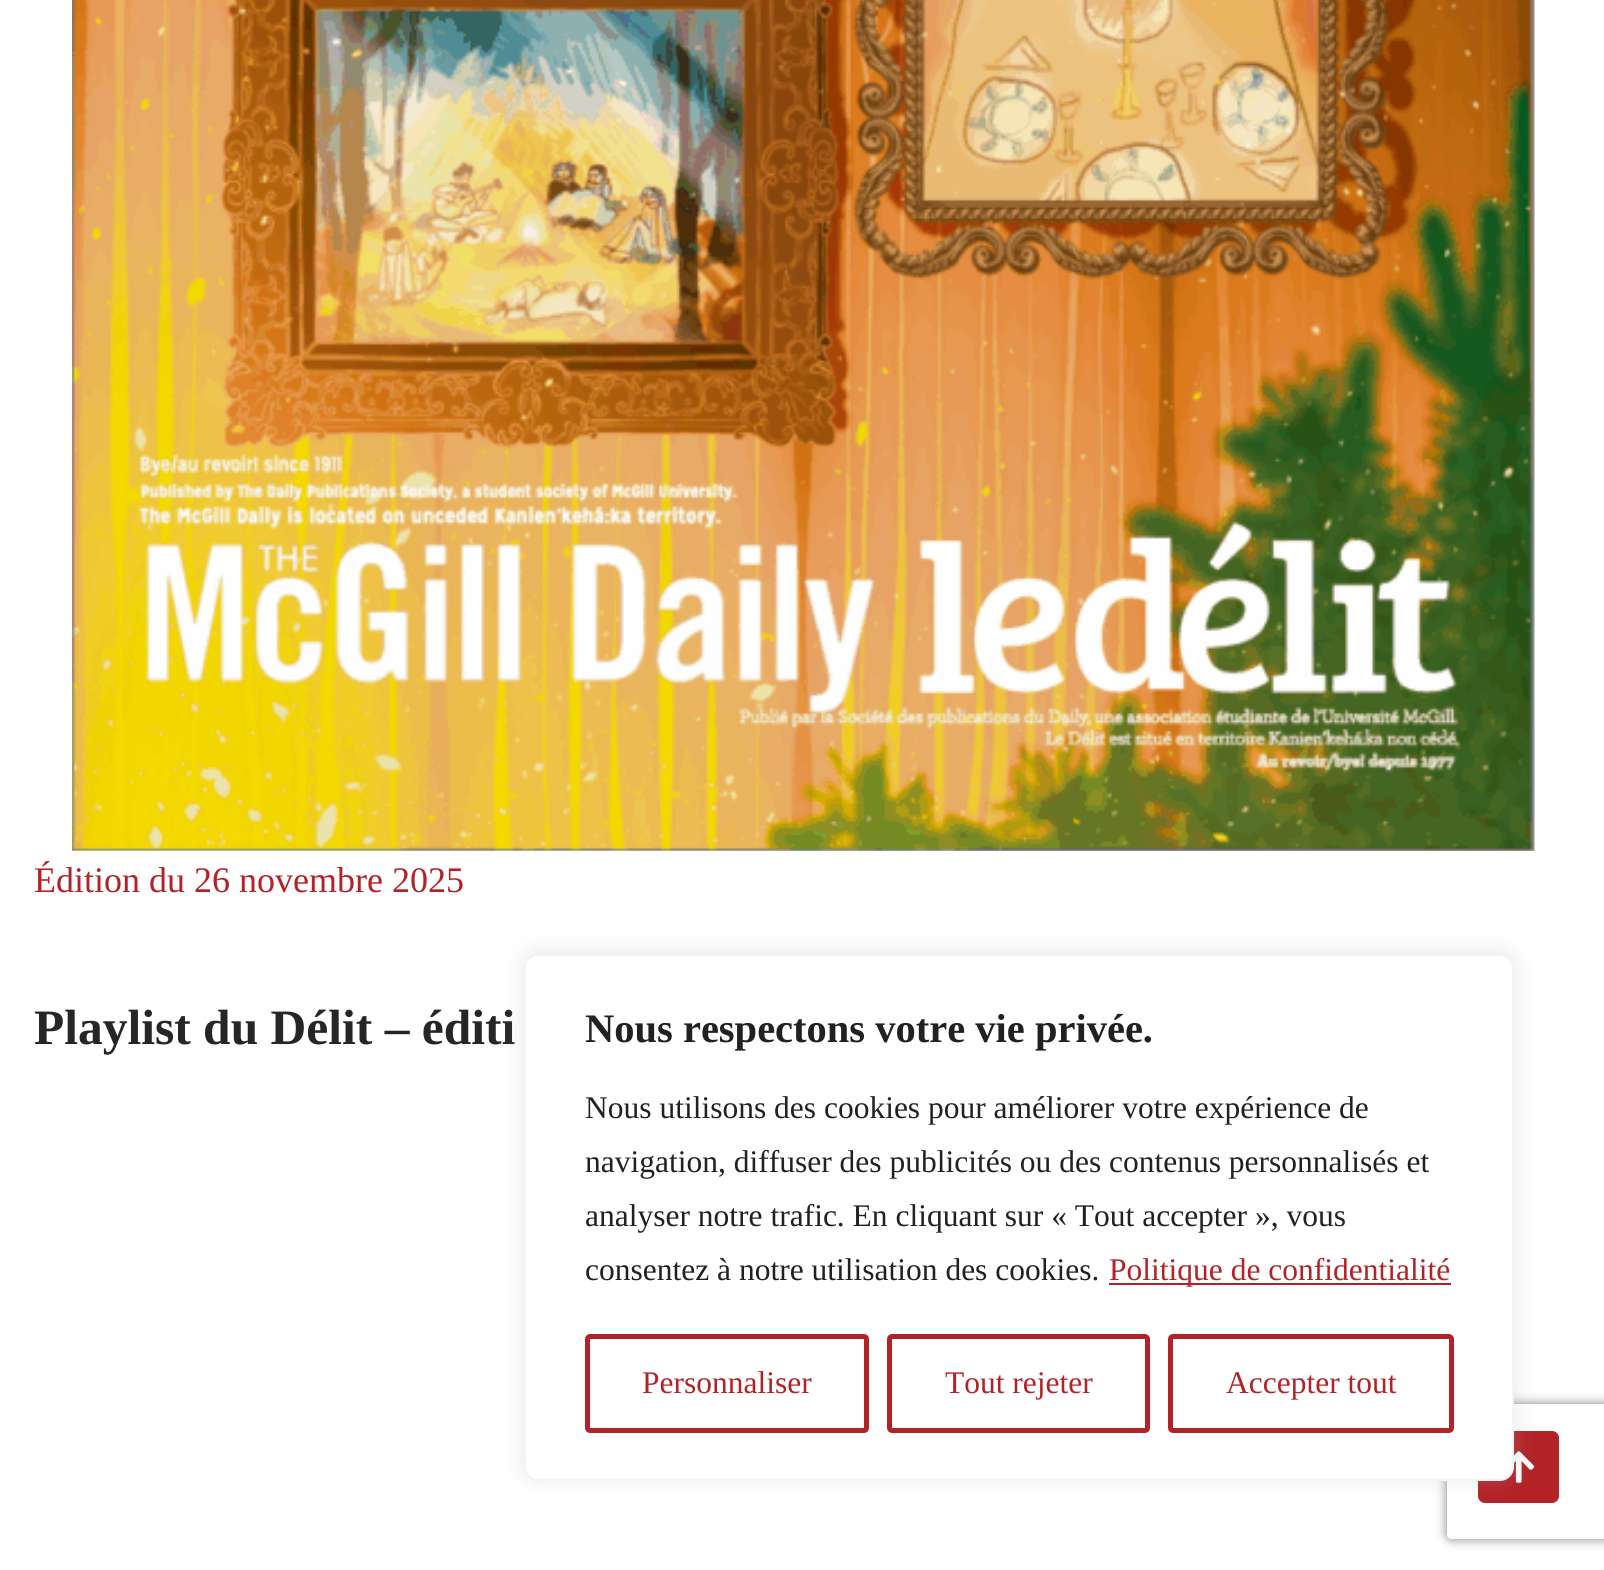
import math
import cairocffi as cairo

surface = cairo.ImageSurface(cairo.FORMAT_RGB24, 1604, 1570)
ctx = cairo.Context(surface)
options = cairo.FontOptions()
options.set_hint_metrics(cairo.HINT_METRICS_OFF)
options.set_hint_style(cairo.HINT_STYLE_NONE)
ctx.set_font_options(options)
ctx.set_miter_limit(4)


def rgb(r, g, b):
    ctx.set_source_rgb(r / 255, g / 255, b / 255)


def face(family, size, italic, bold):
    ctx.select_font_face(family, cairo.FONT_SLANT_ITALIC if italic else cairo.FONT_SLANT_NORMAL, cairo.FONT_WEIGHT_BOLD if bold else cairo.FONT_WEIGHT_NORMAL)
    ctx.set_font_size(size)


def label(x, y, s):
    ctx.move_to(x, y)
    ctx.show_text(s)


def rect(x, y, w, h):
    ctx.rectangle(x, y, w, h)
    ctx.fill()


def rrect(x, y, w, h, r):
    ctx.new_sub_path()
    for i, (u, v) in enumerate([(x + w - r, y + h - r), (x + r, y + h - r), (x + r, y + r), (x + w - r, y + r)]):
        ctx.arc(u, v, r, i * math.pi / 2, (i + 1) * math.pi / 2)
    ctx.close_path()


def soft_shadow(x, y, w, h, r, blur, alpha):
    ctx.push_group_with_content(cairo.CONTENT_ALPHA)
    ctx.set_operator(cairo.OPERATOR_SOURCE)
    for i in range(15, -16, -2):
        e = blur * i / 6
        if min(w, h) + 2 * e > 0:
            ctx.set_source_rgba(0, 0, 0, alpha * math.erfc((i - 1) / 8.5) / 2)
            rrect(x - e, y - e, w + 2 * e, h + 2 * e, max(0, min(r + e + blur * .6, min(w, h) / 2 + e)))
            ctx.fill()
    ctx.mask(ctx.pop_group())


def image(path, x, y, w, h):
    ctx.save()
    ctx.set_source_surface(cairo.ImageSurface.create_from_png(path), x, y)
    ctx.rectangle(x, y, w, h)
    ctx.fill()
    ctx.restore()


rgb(255, 255, 255)
ctx.paint()
image('image0.png', 72, 0, 1463, 851)
face('Liberation Serif', 36, 0, 0)
rgb(178, 34, 39)
label(34, 892, 'Édition du 26 novembre 2025')
face('Liberation Serif', 49.5, 0, 1)
rgb(39, 38, 38)
label(34, 1044, 'Playlist du Délit – éditi')
ctx.save()
ctx.set_fill_rule(cairo.FILL_RULE_EVEN_ODD)
ctx.new_path()
ctx.move_to(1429, 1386)
ctx.line_to(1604, 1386)
ctx.line_to(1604, 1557)
ctx.line_to(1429, 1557)
ctx.close_path()
ctx.move_to(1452, 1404)
ctx.line_to(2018, 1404)
ctx.curve_to(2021, 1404, 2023, 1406, 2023, 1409)
ctx.line_to(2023, 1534)
ctx.curve_to(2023, 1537, 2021, 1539, 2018, 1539)
ctx.line_to(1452, 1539)
ctx.curve_to(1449, 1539, 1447, 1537, 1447, 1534)
ctx.line_to(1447, 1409)
ctx.curve_to(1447, 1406, 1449, 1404, 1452, 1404)
ctx.close_path()
ctx.clip()
rgb(128, 128, 128)
soft_shadow(1447, 1404, 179, 135, 5, 5.5, 1)
ctx.restore()
rgb(178, 34, 39)
rrect(1478, 1431, 81, 72, 7)
ctx.fill()
image('image1.png', 1514, 1451, 21, 32)
rgb(172, 171, 171)
soft_shadow(524, 952, 990, 526, 14, 11, 0.3)
rgb(255, 255, 255)
rrect(525, 955, 988, 525, 13)
ctx.fill_preserve()
rgb(244, 244, 244)
ctx.stroke()
face('Liberation Serif', 40.5, 0, 1)
rgb(33, 33, 33)
label(585, 1042, 'Nous respectons votre vie privée.')
face('Liberation Serif', 31.5, 0, 0)
label(585, 1118, 'Nous utilisons des cookies pour améliorer votre expérience de')
label(585, 1172, 'navigation, diffuser des publicités ou des contenus personnalisés et')
label(585, 1226, 'analyser notre trafic. En cliquant sur « Tout accepter », vous')
label(585, 1280, 'consentez à notre utilisation des cookies.')
rgb(178, 34, 39)
rect(1109, 1283, 342, 2)
label(1109, 1280, 'Politique de confidentialité')
rrect(587.5, 1336.5, 279, 94, 2.5)
ctx.set_line_width(5)
ctx.stroke()
label(642, 1393, 'Personnaliser')
rrect(889.5, 1336.5, 258, 94, 2.5)
ctx.stroke()
label(945, 1393, 'Tout rejeter')
rrect(1170.5, 1336.5, 281, 94, 2.5)
ctx.stroke()
label(1226, 1393, 'Accepter tout')
surface.write_to_png('render.png')
